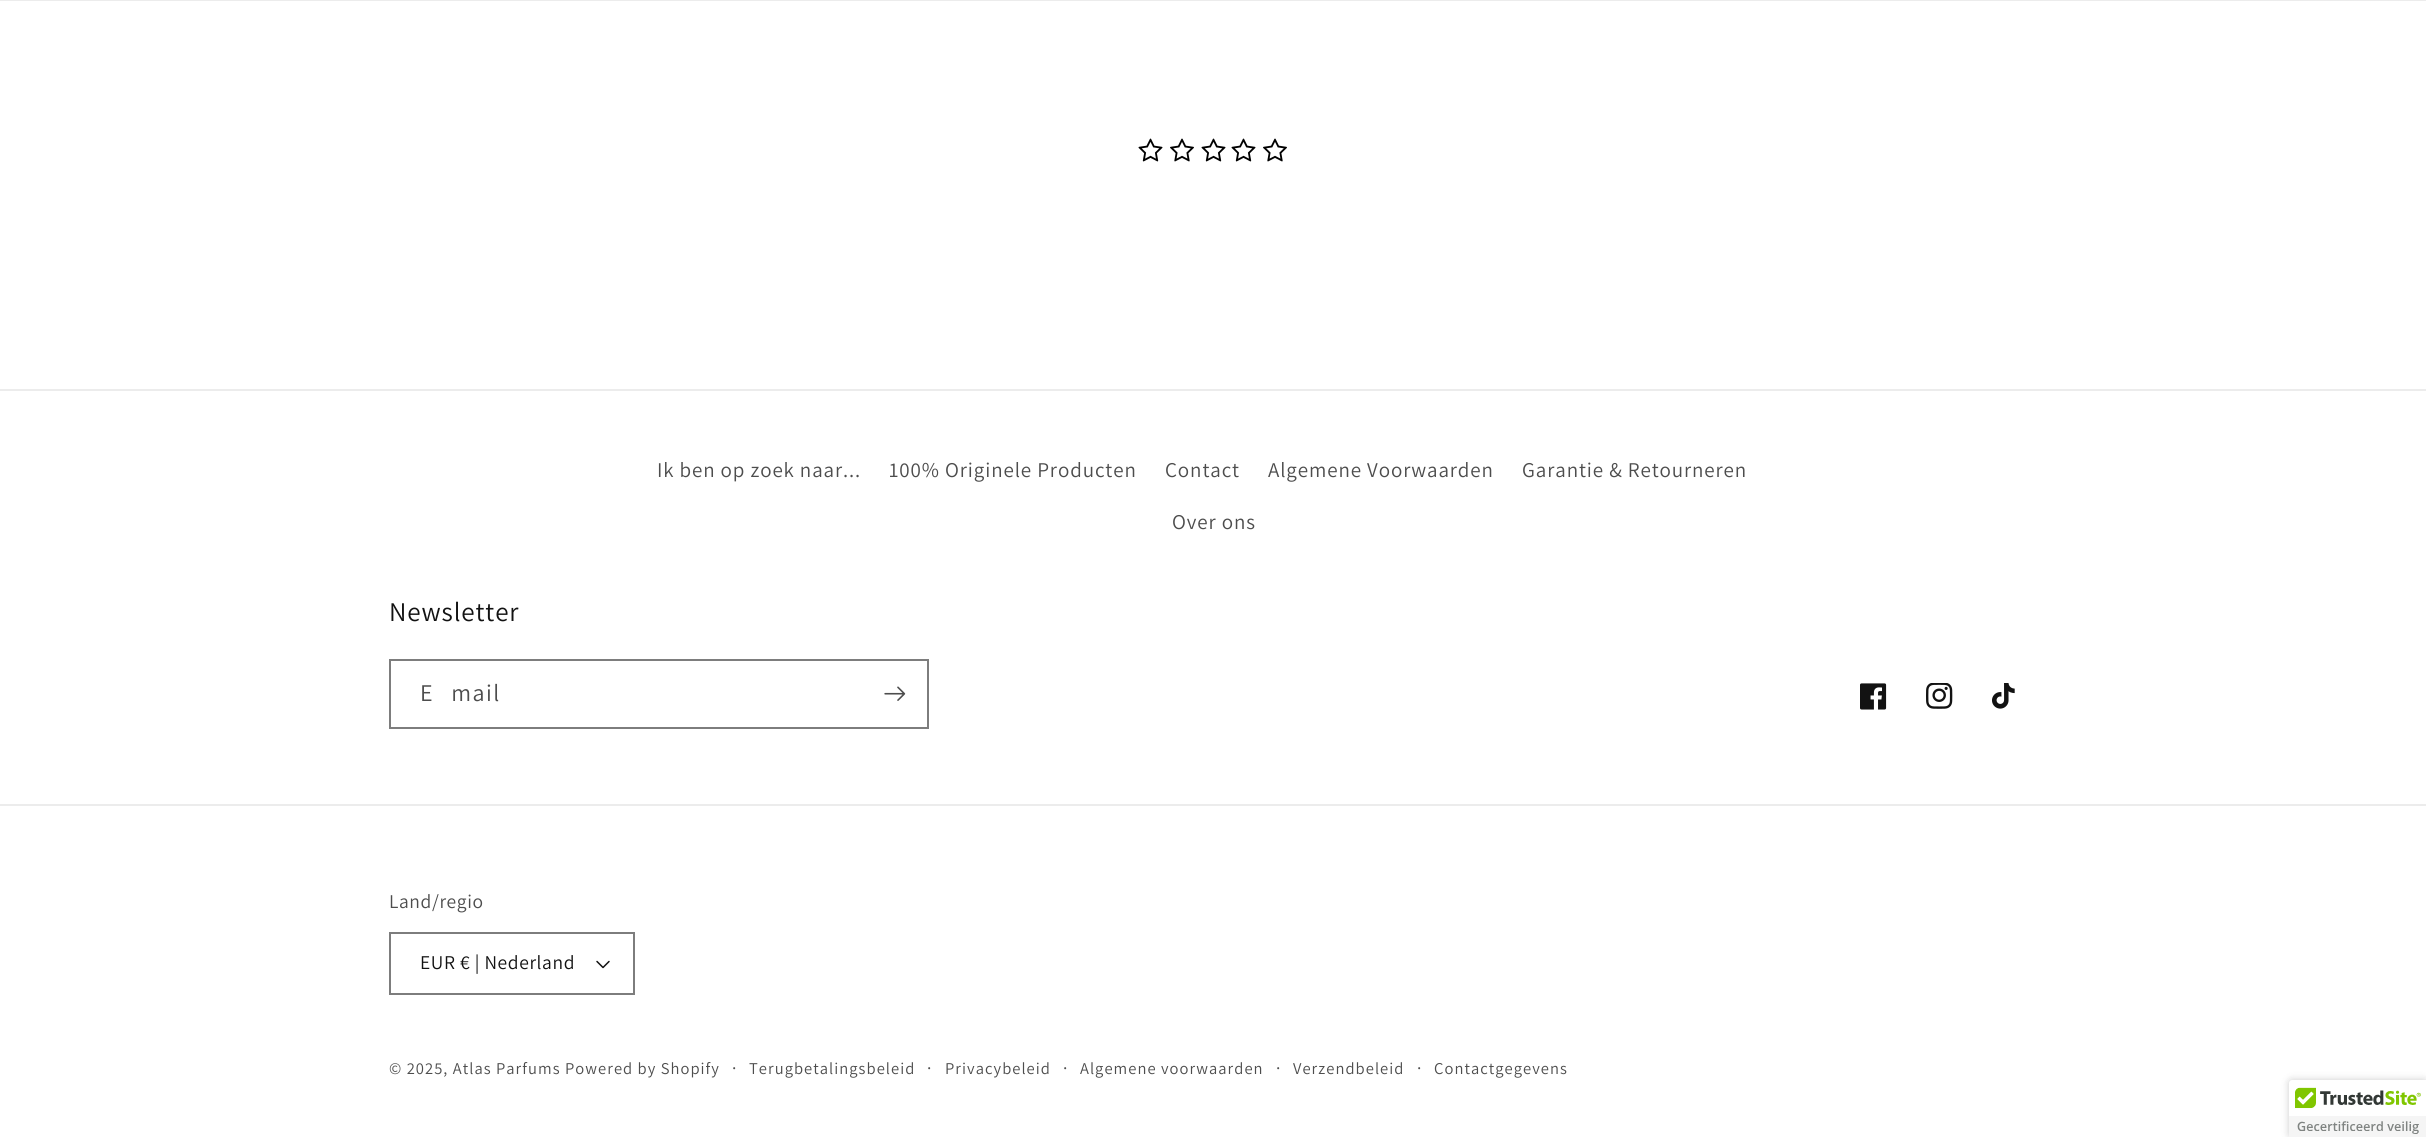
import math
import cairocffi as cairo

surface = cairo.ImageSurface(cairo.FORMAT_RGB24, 2426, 1137)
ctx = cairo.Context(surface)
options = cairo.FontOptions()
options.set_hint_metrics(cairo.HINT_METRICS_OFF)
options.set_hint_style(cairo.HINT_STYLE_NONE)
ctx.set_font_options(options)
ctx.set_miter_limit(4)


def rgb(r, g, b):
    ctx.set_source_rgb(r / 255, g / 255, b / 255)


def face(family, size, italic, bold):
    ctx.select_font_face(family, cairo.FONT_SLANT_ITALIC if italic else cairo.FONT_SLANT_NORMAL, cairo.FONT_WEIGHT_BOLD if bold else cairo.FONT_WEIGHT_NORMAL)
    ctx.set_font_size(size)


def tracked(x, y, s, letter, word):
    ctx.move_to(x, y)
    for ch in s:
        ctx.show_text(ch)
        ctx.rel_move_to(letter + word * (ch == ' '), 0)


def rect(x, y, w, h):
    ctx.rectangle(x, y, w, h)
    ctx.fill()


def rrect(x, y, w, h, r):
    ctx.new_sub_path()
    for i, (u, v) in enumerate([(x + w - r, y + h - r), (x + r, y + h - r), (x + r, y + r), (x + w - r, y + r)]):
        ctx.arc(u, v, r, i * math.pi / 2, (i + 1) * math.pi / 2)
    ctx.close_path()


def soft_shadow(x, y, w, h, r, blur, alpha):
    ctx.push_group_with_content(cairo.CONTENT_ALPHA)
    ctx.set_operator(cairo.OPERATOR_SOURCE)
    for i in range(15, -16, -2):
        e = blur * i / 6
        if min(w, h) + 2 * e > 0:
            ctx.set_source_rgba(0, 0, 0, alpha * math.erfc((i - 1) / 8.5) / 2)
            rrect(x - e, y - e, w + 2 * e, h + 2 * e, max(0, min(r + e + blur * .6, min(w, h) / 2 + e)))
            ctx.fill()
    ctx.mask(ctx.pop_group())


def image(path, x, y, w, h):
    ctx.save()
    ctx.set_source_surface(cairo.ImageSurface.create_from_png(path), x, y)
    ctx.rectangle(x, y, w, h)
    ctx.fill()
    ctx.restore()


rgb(255, 255, 255)
ctx.paint()
rgb(236, 236, 236)
rect(0, 0, 2426, 1)
image('image0.png', 1138, 138, 25, 24)
image('image1.png', 1170, 138, 24, 24)
image('image0.png', 1201, 138, 25, 24)
image('image0.png', 1231, 138, 25, 24)
image('image1.png', 1263, 138, 24, 24)
rect(0, 389, 2426, 2)
face('Assistant', 21, 0, 0)
rgb(77, 77, 77)
tracked(657, 477, 'Ik ben op zoek naar...', 0.9, 0)
tracked(889, 477, '100% Originele Producten', 0.9, 0)
tracked(1165, 477, 'Contact', 0.9, 0)
tracked(1268, 477, 'Algemene Voorwaarden', 0.9, 0)
tracked(1522, 477, 'Garantie & Retourneren', 0.9, 0)
tracked(1172, 529, 'Over ons', 0.9, 0)
face('Assistant', 27, 0, 0)
rgb(18, 18, 18)
tracked(389, 621, 'Newsletter', 0.9, 0)
ctx.rectangle(390, 660, 538, 68)
rgb(125, 125, 125)
ctx.stroke()
face('Assistant', 24, 0, 0)
rgb(77, 77, 77)
tracked(420, 701, 'E‑mail', 1.5, 0)
image('image2.png', 884, 686, 22, 15)
image('image3.png', 1860, 683, 27, 27)
image('image4.png', 1926, 683, 27, 26)
image('image5.png', 1992, 683, 23, 26)
rgb(236, 236, 236)
rect(0, 804, 2426, 2)
face('Assistant', 19.5, 0, 0)
rgb(77, 77, 77)
tracked(389, 908, 'Land/regio', 0.6, 0)
image('image6.png', 596, 960, 14, 9)
ctx.rectangle(390, 933, 244, 61)
rgb(125, 125, 125)
ctx.stroke()
rgb(18, 18, 18)
tracked(420, 969, 'EUR € | Nederland', 0.6, 0)
face('Assistant', 16.5, 0, 0)
rgb(77, 77, 77)
tracked(389, 1074, '© 2025, Atlas Parfums', 1.05, 0)
tracked(565, 1074, 'Powered by Shopify', 1.05, 0)
face('Assistant', 18, 0, 0)
tracked(732, 1074, '·', 1.05, 0)
face('Assistant', 16.5, 0, 0)
tracked(749, 1074, 'Terugbetalingsbeleid', 1.05, 0)
face('Assistant', 18, 0, 0)
tracked(927, 1074, '·', 1.05, 0)
face('Assistant', 16.5, 0, 0)
tracked(945, 1074, 'Privacybeleid', 1.05, 0)
face('Assistant', 18, 0, 0)
tracked(1063, 1074, '·', 1.05, 0)
face('Assistant', 16.5, 0, 0)
tracked(1080, 1074, 'Algemene voorwaarden', 1.05, 0)
face('Assistant', 18, 0, 0)
tracked(1276, 1074, '·', 1.05, 0)
face('Assistant', 16.5, 0, 0)
tracked(1293, 1074, 'Verzendbeleid', 1.05, 0)
face('Assistant', 18, 0, 0)
tracked(1417, 1074, '·', 1.05, 0)
face('Assistant', 16.5, 0, 0)
tracked(1434, 1074, 'Contactgegevens', 1.05, 0)
rgb(0, 0, 0)
soft_shadow(2289, 1080, 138, 57, 3, 4, 0.2)
rgb(255, 255, 255)
ctx.new_path()
ctx.move_to(2292, 1080)
ctx.line_to(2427, 1080)
ctx.line_to(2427, 1137)
ctx.line_to(2289, 1137)
ctx.line_to(2289, 1083)
ctx.curve_to(2289, 1081.5, 2290.5, 1080, 2292, 1080)
ctx.close_path()
ctx.fill()
image('image7.png', 2289, 1087, 137, 50)
surface.write_to_png('render.png')
